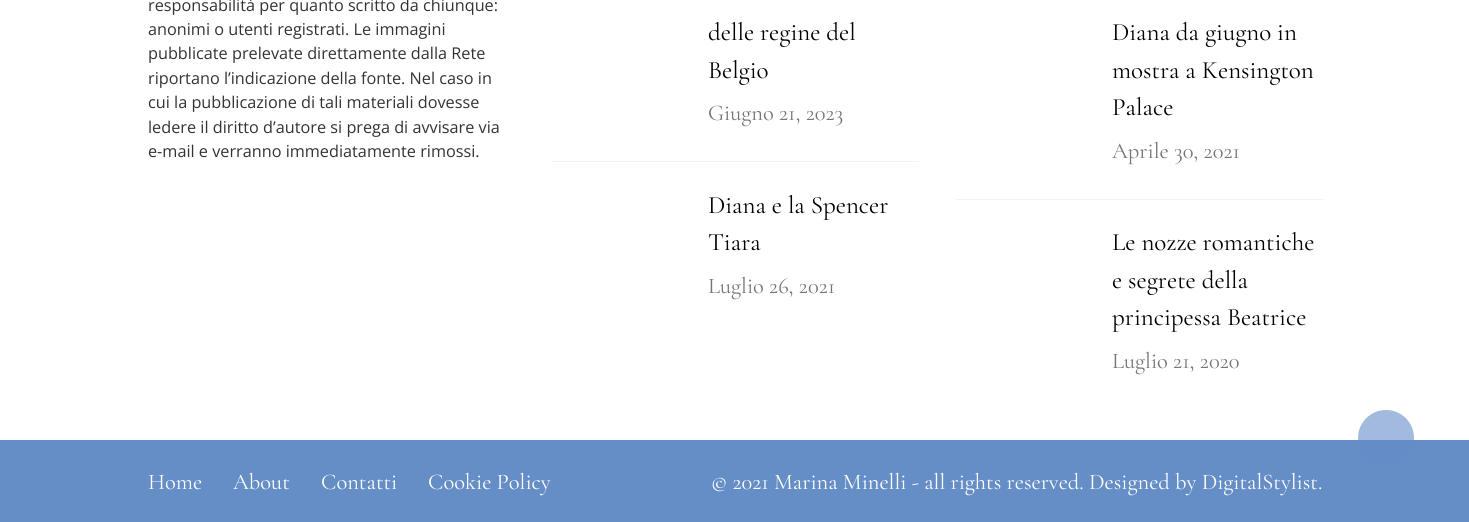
import math
import cairocffi as cairo

surface = cairo.ImageSurface(cairo.FORMAT_RGB24, 1469, 522)
ctx = cairo.Context(surface)
options = cairo.FontOptions()
options.set_hint_metrics(cairo.HINT_METRICS_OFF)
options.set_hint_style(cairo.HINT_STYLE_NONE)
ctx.set_font_options(options)
ctx.set_miter_limit(4)


def rgb(r, g, b):
    ctx.set_source_rgb(r / 255, g / 255, b / 255)


def face(family, size, italic, bold):
    ctx.select_font_face(family, cairo.FONT_SLANT_ITALIC if italic else cairo.FONT_SLANT_NORMAL, cairo.FONT_WEIGHT_BOLD if bold else cairo.FONT_WEIGHT_NORMAL)
    ctx.set_font_size(size)


def label(x, y, s):
    ctx.move_to(x, y)
    ctx.show_text(s)


def rect(x, y, w, h):
    ctx.rectangle(x, y, w, h)
    ctx.fill()


rgb(255, 255, 255)
ctx.paint()
face('Open Sans', 16.25, 0, 0)
rgb(51, 51, 51)
label(148, 11, 'responsabilità per quanto scritto da chiunque:')
label(148, 35, 'anonimi o utenti registrati. Le immagini')
label(148, 59, 'pubblicate prelevate direttamente dalla Rete')
label(148, 84, 'riportano l’indicazione della fonte. Nel caso in')
label(148, 108, 'cui la pubblicazione di tali materiali dovesse')
label(148, 133, 'ledere il diritto d’autore si prega di avvisare via')
label(148, 157, 'e-mail e verranno immediatamente rimossi.')
rgb(242, 242, 242)
rect(551, 161, 368, 1)
face('Cormorant Garamond Light', 25, 0, 0)
rgb(0, 0, 0)
label(708, 40, 'delle regine del')
label(708, 78, 'Belgio')
face('Cormorant Garamond Light', 22.5, 0, 0)
rgb(117, 117, 117)
label(708, 120, 'Giugno 21, 2023')
face('Cormorant Garamond Light', 25, 0, 0)
rgb(0, 0, 0)
label(708, 213, 'Diana e la Spencer')
label(708, 250, 'Tiara')
face('Cormorant Garamond Light', 22.5, 0, 0)
rgb(117, 117, 117)
label(708, 293, 'Luglio 26, 2021')
rgb(242, 242, 242)
rect(956, 199, 367, 1)
face('Cormorant Garamond Light', 25, 0, 0)
rgb(0, 0, 0)
label(1112, 40, 'Diana da giugno in')
label(1112, 78, 'mostra a Kensington')
label(1112, 115, 'Palace')
face('Cormorant Garamond Light', 22.5, 0, 0)
rgb(117, 117, 117)
label(1112, 158, 'Aprile 30, 2021')
face('Cormorant Garamond Light', 25, 0, 0)
rgb(0, 0, 0)
label(1112, 250, 'Le nozze romantiche')
label(1112, 288, 'e segrete della')
label(1112, 325, 'principessa Beatrice')
face('Cormorant Garamond Light', 22.5, 0, 0)
rgb(117, 117, 117)
label(1112, 368, 'Luglio 21, 2020')
rgb(101, 141, 198)
rect(0, 440, 1469, 82)
ctx.set_source_rgba(0.396, 0.553, 0.776, 0.6)
ctx.new_path()
ctx.arc(1386, 438, 28, 0, 2 * math.pi)
ctx.fill()
rgb(255, 255, 255)
label(148, 489, 'Home')
label(233, 489, 'About')
label(321, 489, 'Contatti')
label(428, 489, 'Cookie Policy')
label(711, 489, '© 2021 Marina Minelli - all rights reserved. Designed by DigitalStylist.')
surface.write_to_png('render.png')
